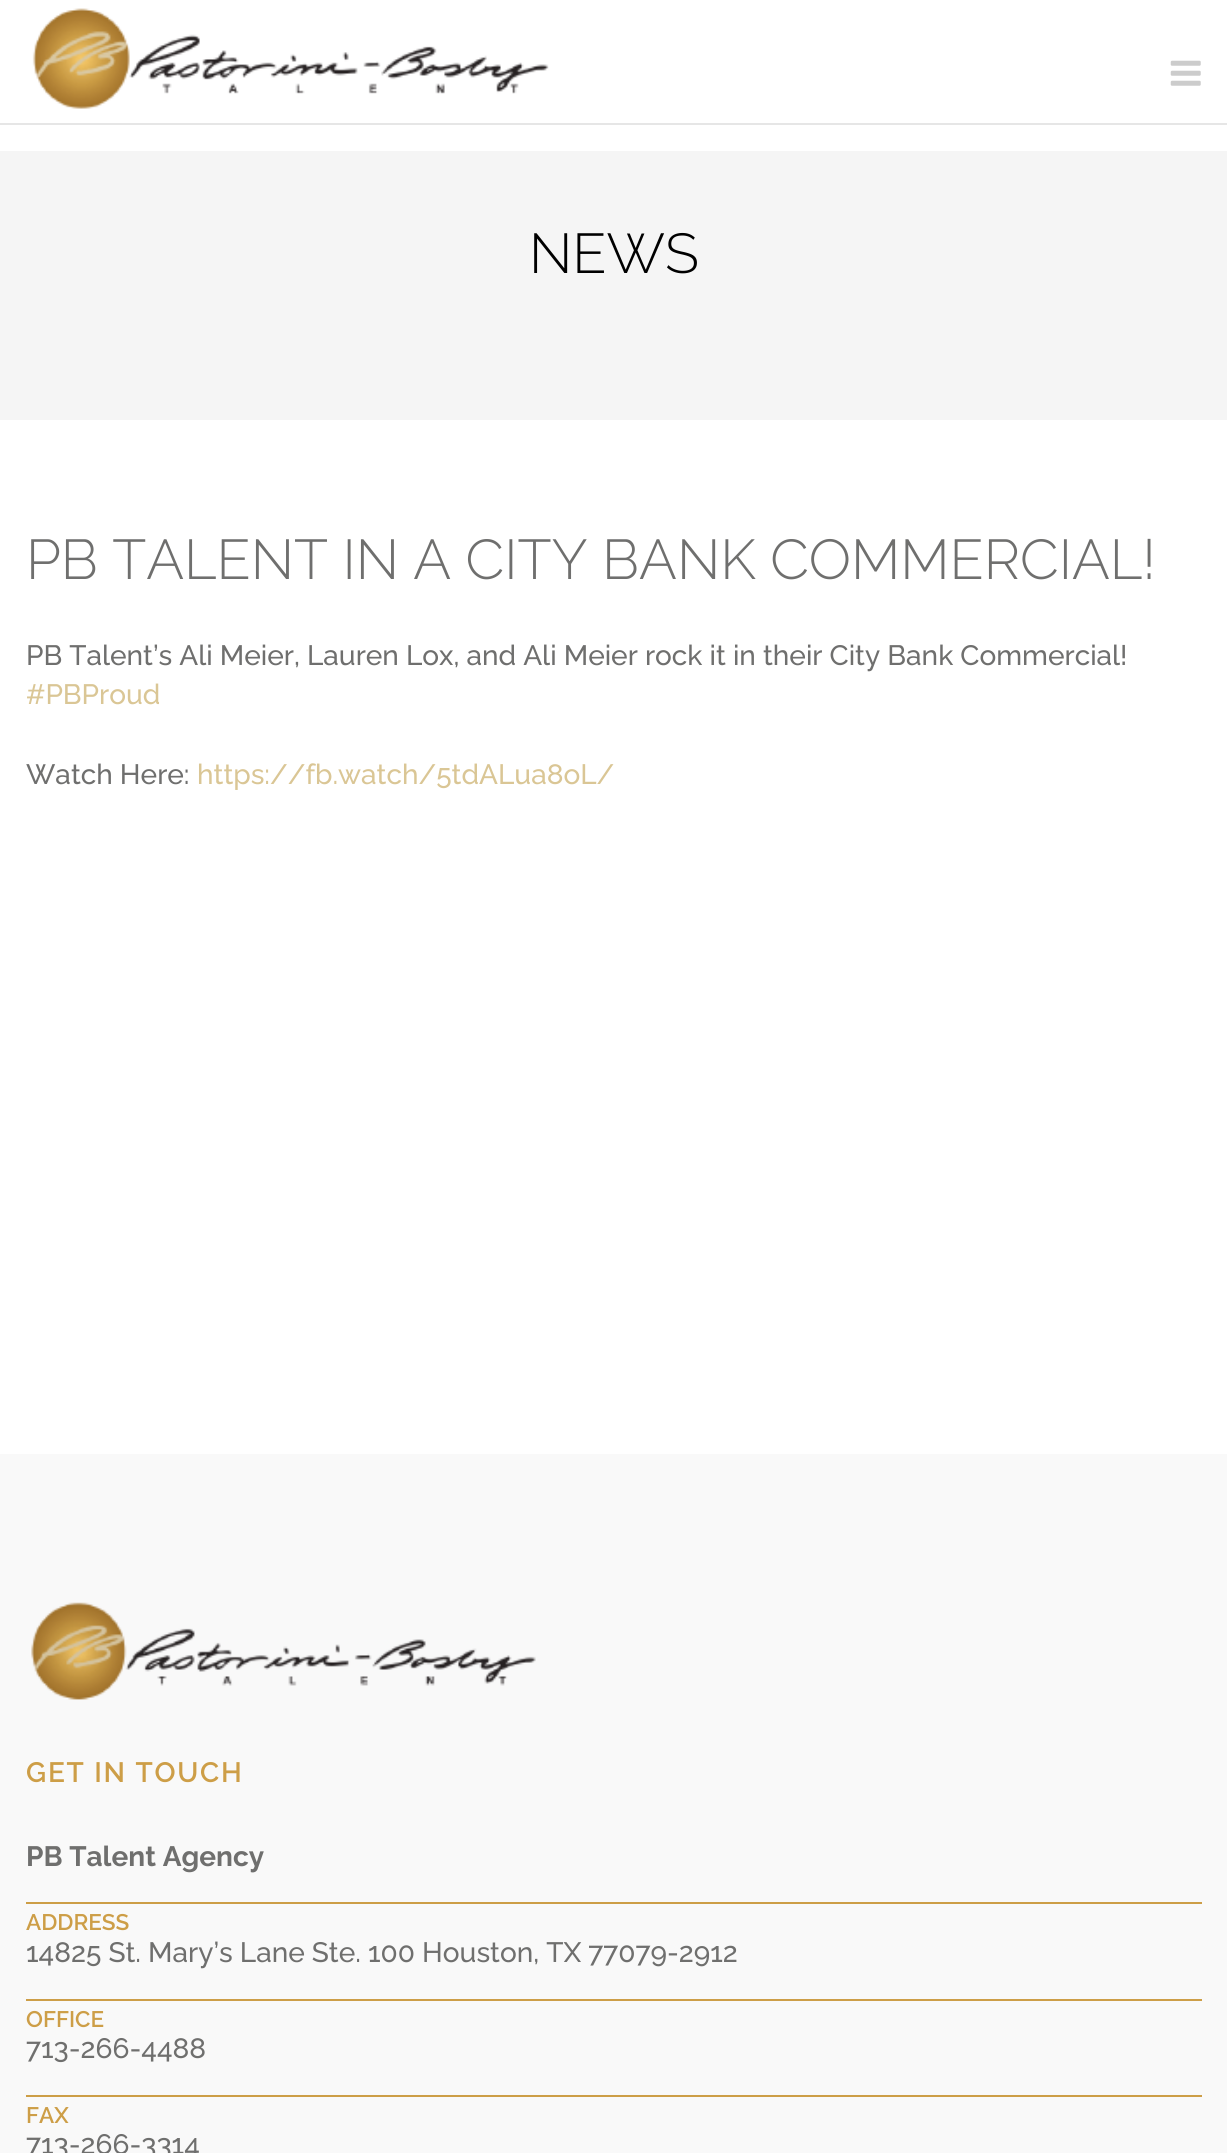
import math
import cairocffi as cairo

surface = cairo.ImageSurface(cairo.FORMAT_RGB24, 1227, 2153)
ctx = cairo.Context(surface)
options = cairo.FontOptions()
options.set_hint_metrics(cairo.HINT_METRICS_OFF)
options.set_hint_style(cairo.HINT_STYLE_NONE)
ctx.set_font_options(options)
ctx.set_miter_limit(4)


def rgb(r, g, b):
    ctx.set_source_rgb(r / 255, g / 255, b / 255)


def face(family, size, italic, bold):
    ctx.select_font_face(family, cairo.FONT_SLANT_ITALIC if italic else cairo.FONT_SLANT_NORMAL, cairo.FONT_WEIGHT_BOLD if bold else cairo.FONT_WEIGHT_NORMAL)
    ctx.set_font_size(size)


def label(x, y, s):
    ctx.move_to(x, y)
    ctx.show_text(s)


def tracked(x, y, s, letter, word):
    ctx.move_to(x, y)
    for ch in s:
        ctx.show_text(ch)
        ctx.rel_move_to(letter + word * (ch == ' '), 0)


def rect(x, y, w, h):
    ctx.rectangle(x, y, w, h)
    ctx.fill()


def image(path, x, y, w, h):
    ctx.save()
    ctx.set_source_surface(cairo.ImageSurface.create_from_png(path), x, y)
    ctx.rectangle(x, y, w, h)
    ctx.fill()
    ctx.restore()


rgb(255, 255, 255)
ctx.paint()
rgb(230, 230, 230)
rect(0, 123, 1227, 2)
image('image0.png', 32, 8, 517, 101)
image('image1.png', 1170, 60, 31, 26)
rgb(245, 245, 245)
rect(0, 151, 1227, 269)
face('Raleway Light', 56, 0, 0)
rgb(0, 0, 0)
label(529, 273, 'NEWS')
rgb(111, 111, 110)
label(26, 579, 'PB TALENT IN A CITY BANK COMMERCIAL!')
face('Raleway Medium', 28, 0, 0)
label(26, 665, 'PB Talent’s Ali Meier, Lauren Lox, and Ali Meier rock it in their City Bank Commercial!')
rgb(218, 198, 149)
label(26, 704, '#PBProud')
rgb(111, 111, 110)
label(26, 784, 'Watch Here:')
rgb(218, 198, 149)
label(197, 784, 'https://fb.watch/5tdALua8oL/')
rgb(249, 249, 249)
rect(0, 1454, 1227, 699)
image('image2.png', 31, 1602, 505, 98)
face('Raleway SemiBold', 28, 0, 0)
rgb(205, 158, 71)
tracked(26, 1782, 'GET IN TOUCH', 1.75, 0)
face('Raleway', 28, 0, 1)
rgb(111, 111, 110)
label(26, 1866, 'PB Talent Agency')
rgb(205, 158, 71)
rect(26, 1902, 1176, 2)
face('Raleway SemiBold', 22.5, 0, 0)
label(26, 1930, 'ADDRESS')
face('Raleway Medium', 28, 0, 0)
rgb(111, 111, 110)
label(26, 1962, '14825 St. Mary’s Lane Ste. 100 Houston, TX 77079-2912')
rgb(205, 158, 71)
rect(26, 1999, 1176, 2)
face('Raleway SemiBold', 22.5, 0, 0)
label(26, 2027, 'OFFICE')
face('Raleway Medium', 28, 0, 0)
rgb(111, 111, 110)
label(26, 2058, '713-266-4488')
rgb(205, 158, 71)
rect(26, 2095, 1176, 2)
face('Raleway SemiBold', 22.5, 0, 0)
label(26, 2123, 'FAX')
face('Raleway Medium', 28, 0, 0)
rgb(111, 111, 110)
label(26, 2154, '713-266-3314')
surface.write_to_png('render.png')
